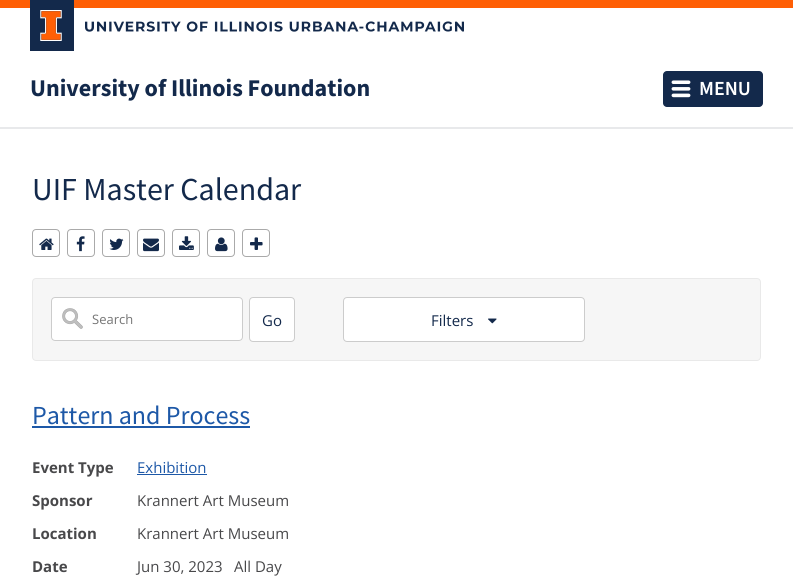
import math
import cairocffi as cairo

surface = cairo.ImageSurface(cairo.FORMAT_RGB24, 793, 581)
ctx = cairo.Context(surface)
options = cairo.FontOptions()
options.set_hint_metrics(cairo.HINT_METRICS_OFF)
options.set_hint_style(cairo.HINT_STYLE_NONE)
ctx.set_font_options(options)
ctx.set_miter_limit(4)


def rgb(r, g, b):
    ctx.set_source_rgb(r / 255, g / 255, b / 255)


def face(family, size, italic, bold):
    ctx.select_font_face(family, cairo.FONT_SLANT_ITALIC if italic else cairo.FONT_SLANT_NORMAL, cairo.FONT_WEIGHT_BOLD if bold else cairo.FONT_WEIGHT_NORMAL)
    ctx.set_font_size(size)


def label(x, y, s):
    ctx.move_to(x, y)
    ctx.show_text(s)


def rect(x, y, w, h):
    ctx.rectangle(x, y, w, h)
    ctx.fill()


def rrect(x, y, w, h, r):
    ctx.new_sub_path()
    for i, (u, v) in enumerate([(x + w - r, y + h - r), (x + r, y + h - r), (x + r, y + r), (x + w - r, y + r)]):
        ctx.arc(u, v, r, i * math.pi / 2, (i + 1) * math.pi / 2)
    ctx.close_path()


def image(path, x, y, w, h):
    ctx.save()
    ctx.set_source_surface(cairo.ImageSurface.create_from_png(path), x, y)
    ctx.rectangle(x, y, w, h)
    ctx.fill()
    ctx.restore()


rgb(255, 255, 255)
ctx.paint()
rgb(232, 233, 235)
rect(0, 127, 793, 2)
rgb(255, 95, 5)
rect(0, 0, 793, 8)
rgb(19, 41, 75)
rect(30, 0, 44, 51)
image('image0.png', 40, 10, 22, 31)
image('image1.png', 85, 21, 379, 11)
face('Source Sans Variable', 24, 0, 1)
label(30, 96, 'University of Illinois Foundation')
rrect(663, 71, 100, 36, 4)
ctx.fill()
image('image2.png', 671, 80, 20, 18)
face('Source Sans Variable SemiBold', 20, 0, 0)
rgb(255, 255, 255)
label(699, 95, 'MENU')
face('Source Sans Pro', 32, 0, 0)
rgb(19, 41, 75)
label(32, 200, 'UIF Master Calendar')
rrect(32.5, 229.5, 27, 27, 3.5)
rgb(170, 170, 170)
ctx.set_line_width(1)
ctx.stroke()
image('image3.png', 39, 238, 15, 12)
rrect(67.5, 229.5, 27, 27, 3.5)
ctx.stroke()
image('image4.png', 76, 236, 9, 16)
rrect(102.5, 229.5, 27, 27, 3.5)
ctx.stroke()
image('image5.png', 109, 238, 15, 12)
rrect(137.5, 229.5, 27, 27, 3.5)
ctx.stroke()
image('image6.png', 143, 238, 16, 14)
rrect(172.5, 229.5, 27, 27, 3.5)
ctx.stroke()
image('image7.png', 179, 236, 15, 14)
rrect(207.5, 229.5, 27, 27, 3.5)
ctx.stroke()
image('image8.png', 215, 237, 13, 15)
rrect(242.5, 229.5, 27, 27, 3.5)
ctx.stroke()
image('image9.png', 250, 237, 13, 13)
rgb(246, 246, 246)
rrect(32.5, 278.5, 728, 82, 3.5)
ctx.fill_preserve()
rgb(233, 233, 233)
ctx.stroke()
rgb(255, 255, 255)
rrect(51, 297, 192, 44, 4)
ctx.fill()
image('image10.png', 62, 308, 21, 21)
rrect(51.5, 297.5, 191, 43, 3.5)
rgb(204, 204, 204)
ctx.stroke()
face('Open Sans', 13, 0, 0)
rgb(117, 117, 117)
label(92, 324, 'Search')
rgb(255, 255, 255)
rrect(249.5, 297.5, 45, 44, 3.5)
ctx.fill_preserve()
rgb(204, 204, 204)
ctx.stroke()
face('Open Sans', 15, 0, 0)
rgb(19, 41, 75)
label(262, 326, 'Go')
rgb(255, 255, 255)
rrect(343.5, 297.5, 241, 44, 3.5)
ctx.fill_preserve()
rgb(204, 204, 204)
ctx.stroke()
rgb(19, 41, 75)
label(431, 326, 'Filters')
image('image11.png', 488, 318, 9, 6)
face('Source Sans Pro', 26, 0, 0)
rgb(29, 88, 167)
label(32, 424, 'Pattern and Process')
rect(32, 426, 218, 2)
face('Open Sans', 15, 0, 1)
rgb(72, 72, 74)
label(32, 473, 'Event Type')
face('Open Sans', 15, 0, 0)
rgb(29, 88, 167)
label(137, 473, 'Exhibition')
rect(137, 474, 70, 1)
face('Open Sans', 15, 0, 1)
rgb(72, 72, 74)
label(32, 506, 'Sponsor')
face('Open Sans', 15, 0, 0)
label(137, 506, 'Krannert Art Museum')
face('Open Sans', 15, 0, 1)
label(32, 539, 'Location')
face('Open Sans', 15, 0, 0)
label(137, 539, 'Krannert Art Museum')
face('Open Sans', 15, 0, 1)
label(32, 572, 'Date')
face('Open Sans', 15, 0, 0)
label(137, 572, 'Jun 30, 2023')
label(234, 572, 'All Day')
surface.write_to_png('render.png')
